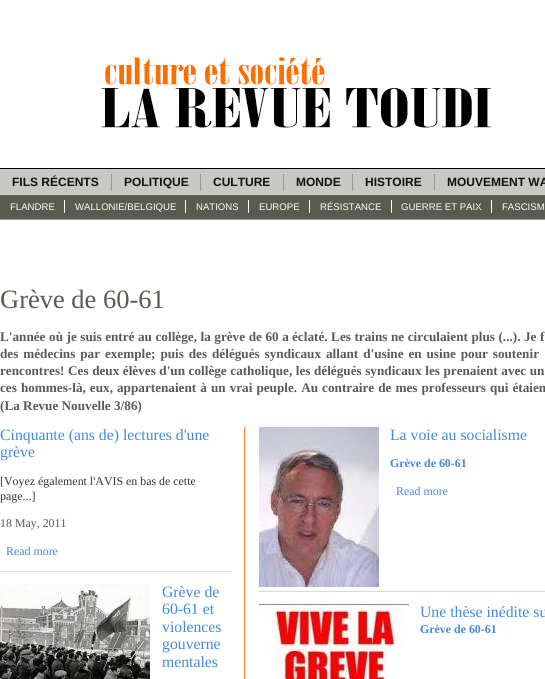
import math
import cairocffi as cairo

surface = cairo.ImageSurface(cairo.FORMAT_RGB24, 545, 679)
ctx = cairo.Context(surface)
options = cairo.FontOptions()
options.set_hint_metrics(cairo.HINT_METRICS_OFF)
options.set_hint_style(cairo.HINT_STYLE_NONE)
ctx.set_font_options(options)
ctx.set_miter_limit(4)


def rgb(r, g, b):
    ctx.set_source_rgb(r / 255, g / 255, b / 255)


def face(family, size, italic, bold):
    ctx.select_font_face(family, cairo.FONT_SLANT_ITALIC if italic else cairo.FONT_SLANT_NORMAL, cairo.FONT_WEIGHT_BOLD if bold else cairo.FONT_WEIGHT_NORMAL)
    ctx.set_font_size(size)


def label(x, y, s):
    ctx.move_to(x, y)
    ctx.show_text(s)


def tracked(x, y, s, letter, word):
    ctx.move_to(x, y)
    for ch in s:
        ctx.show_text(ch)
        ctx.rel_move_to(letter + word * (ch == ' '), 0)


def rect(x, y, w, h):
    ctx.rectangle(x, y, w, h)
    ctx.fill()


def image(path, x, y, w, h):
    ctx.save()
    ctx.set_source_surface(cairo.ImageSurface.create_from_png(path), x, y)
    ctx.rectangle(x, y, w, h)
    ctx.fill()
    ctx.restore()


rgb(255, 255, 255)
ctx.paint()
image('image0.png', 101, 57, 390, 71)
rgb(153, 153, 153)
rect(0, 219, 545, 1)
rgb(200, 201, 195)
rect(0, 169, 545, 26)
rgb(0, 0, 0)
rect(0, 168, 545, 1)
rgb(153, 153, 153)
rect(111, 174, 1, 17)
face('Liberation Sans', 12, 0, 1)
rgb(17, 17, 17)
label(12, 186, 'FILS RÉCENTS')
rgb(153, 153, 153)
rect(200, 174, 1, 17)
rgb(17, 17, 17)
label(124, 186, 'POLITIQUE')
rgb(153, 153, 153)
rect(283, 174, 1, 17)
rgb(17, 17, 17)
label(213, 186, 'CULTURE')
rgb(153, 153, 153)
rect(352, 174, 1, 17)
rgb(17, 17, 17)
label(296, 186, 'MONDE')
rgb(153, 153, 153)
rect(434, 174, 1, 17)
rgb(17, 17, 17)
label(365, 186, 'HISTOIRE')
label(447, 186, 'MOUVEMENT WA')
rgb(90, 91, 80)
rect(0, 195, 545, 24)
rgb(255, 255, 255)
rect(64, 200, 1, 13)
face('Liberation Sans', 9.6, 0, 0)
label(10, 210, 'FLANDRE')
rect(185, 200, 1, 13)
label(75, 210, 'WALLONIE/BELGIQUE')
rect(248, 200, 1, 13)
label(196, 210, 'NATIONS')
rect(309, 200, 1, 13)
label(259, 210, 'EUROPE')
rect(391, 200, 1, 13)
label(320, 210, 'RÉSISTANCE')
rect(491, 200, 1, 13)
label(401, 210, 'GUERRE ET PAIX')
label(502, 210, 'FASCISM')
face('Liberation Serif', 26.5, 0, 0)
rgb(90, 91, 80)
label(0, 308, 'Grève de 60-61')
face('Liberation Serif', 13.2, 0, 1)
tracked(0, 341, 'L\'année où je suis entré au collège, la grève de 60 a', 0, 0.25)
tracked(292, 341, 'éclaté. Les trains ne circulaient plus (...). Je f', 0, 0.25)
tracked(0, 358, 'des médecins par exemple; puis des délégués syndicaux allant d\'usine en usine pour soutenir', 0, 1.6)
tracked(0, 375, 'rencontres! Ces deux élèves d\'un collège catholique, les délégués syndicaux les prenaient avec un', 0, 0.25)
tracked(0, 392, 'ces hommes-là, eux, appartenaient à un vrai peuple. Au contraire de mes professeurs qui étaien', 0, 0.75)
label(0, 410, '(La Revue Nouvelle 3/86)')
rgb(218, 218, 218)
rect(0, 571, 231, 1)
face('Liberation Serif', 15.75, 0, 0)
rgb(65, 137, 221)
label(0, 440, 'Cinquante (ans de) lectures d\'une')
label(0, 457, 'grève')
face('Liberation Serif', 11.9, 0, 0)
rgb(51, 51, 51)
label(0, 485, '[Voyez également l\'AVIS en bas de cette')
label(0, 500, 'page...]')
rgb(85, 85, 85)
label(0, 527, '18 May, 2011')
rgb(65, 137, 221)
label(6, 555, 'Read more')
image('image1.png', 0, 584, 150, 95)
face('Liberation Serif', 15.75, 0, 0)
label(162, 597, 'Grève de')
label(162, 614, '60-61 et')
label(162, 632, 'violences')
label(162, 649, 'gouverne')
label(162, 667, 'mentales')
rgb(255, 130, 58)
rect(244, 427, 1, 252)
rgb(218, 218, 218)
rect(259, 591, 286, 1)
image('image2.png', 259, 427, 120, 160)
rgb(65, 137, 221)
label(390, 440, 'La voie au socialisme')
face('Liberation Serif', 11.9, 0, 1)
label(390, 467, 'Grève de 60-61')
face('Liberation Serif', 11.9, 0, 0)
label(396, 495, 'Read more')
image('image3.png', 259, 604, 150, 75)
face('Liberation Serif', 15.75, 0, 0)
label(420, 617, 'Une thèse inédite su')
face('Liberation Serif', 11.9, 0, 1)
label(420, 633, 'Grève de 60-61')
surface.write_to_png('render.png')
